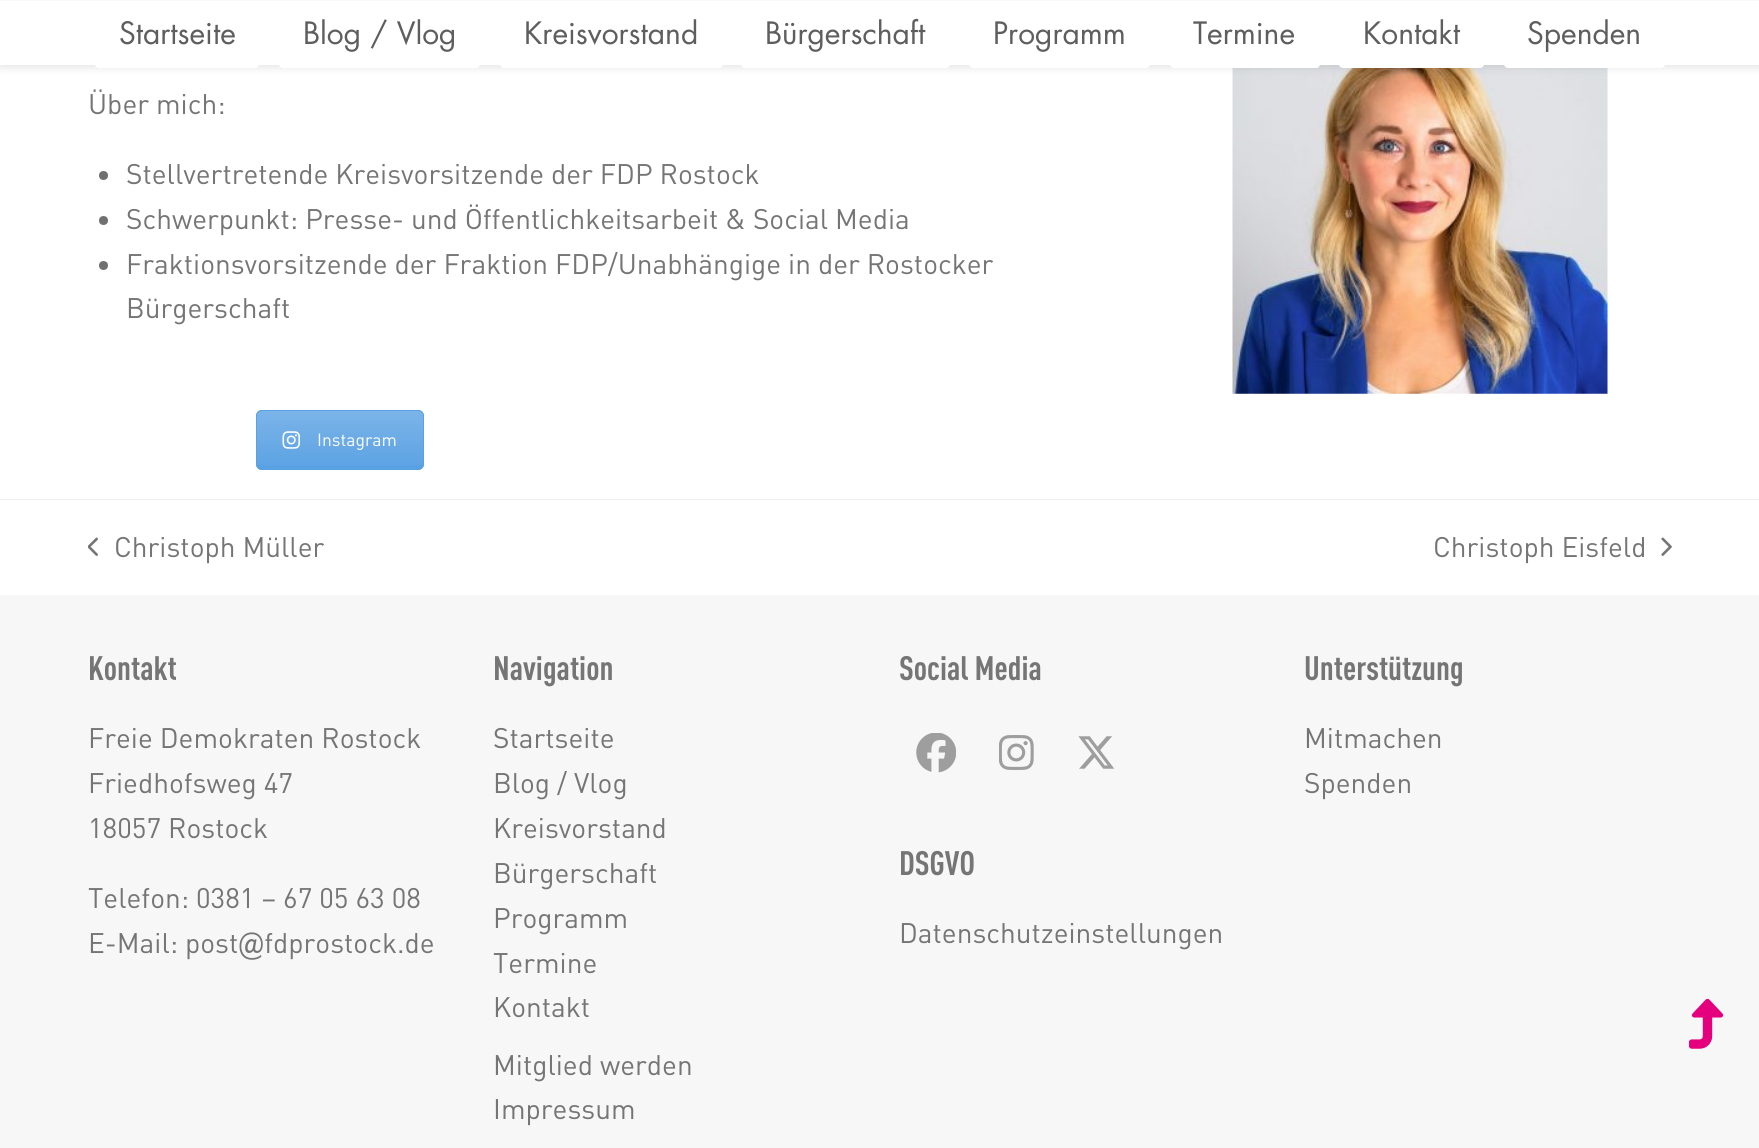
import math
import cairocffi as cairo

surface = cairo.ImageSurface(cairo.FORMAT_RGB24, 1759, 1148)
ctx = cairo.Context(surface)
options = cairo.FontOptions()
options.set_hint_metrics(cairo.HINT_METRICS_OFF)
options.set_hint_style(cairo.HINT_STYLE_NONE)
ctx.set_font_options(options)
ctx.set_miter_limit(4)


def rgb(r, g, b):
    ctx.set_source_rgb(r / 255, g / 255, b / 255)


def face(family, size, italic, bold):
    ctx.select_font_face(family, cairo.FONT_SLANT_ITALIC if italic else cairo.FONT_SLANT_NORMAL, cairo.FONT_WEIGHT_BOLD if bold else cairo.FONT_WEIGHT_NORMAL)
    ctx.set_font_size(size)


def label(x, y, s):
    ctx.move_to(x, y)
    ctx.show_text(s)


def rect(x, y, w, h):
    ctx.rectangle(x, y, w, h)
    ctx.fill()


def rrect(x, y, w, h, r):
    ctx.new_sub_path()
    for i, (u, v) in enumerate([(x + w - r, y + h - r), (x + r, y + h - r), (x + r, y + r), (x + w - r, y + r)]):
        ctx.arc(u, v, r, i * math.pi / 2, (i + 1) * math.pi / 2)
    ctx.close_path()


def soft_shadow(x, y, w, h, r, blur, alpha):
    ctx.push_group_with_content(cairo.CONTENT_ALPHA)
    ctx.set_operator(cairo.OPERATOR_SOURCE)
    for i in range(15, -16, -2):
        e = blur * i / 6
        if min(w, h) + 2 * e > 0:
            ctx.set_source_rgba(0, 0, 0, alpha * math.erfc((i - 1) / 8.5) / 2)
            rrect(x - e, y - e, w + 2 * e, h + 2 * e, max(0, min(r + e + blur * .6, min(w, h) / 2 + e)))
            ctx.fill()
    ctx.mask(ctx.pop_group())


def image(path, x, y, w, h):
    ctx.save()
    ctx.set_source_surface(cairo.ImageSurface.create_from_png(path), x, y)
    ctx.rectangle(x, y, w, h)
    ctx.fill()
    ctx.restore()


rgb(255, 255, 255)
ctx.paint()
image('image0.png', 1232, 65, 376, 329)
rgb(0, 0, 0)
soft_shadow(0, 3, 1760, 65, 0, 4.5, 0.1)
rgb(255, 255, 255)
rect(0, 1, 1759, 64)
rrect(95, 1, 164, 67, 4)
ctx.fill()
face('Futura', 30, 0, 0)
rgb(94, 94, 94)
label(119, 44, 'Startseite')
rgb(255, 255, 255)
rrect(279, 1, 201, 67, 4)
ctx.fill()
rgb(94, 94, 94)
label(303, 44, 'Blog / Vlog')
rgb(255, 255, 255)
rrect(500, 1, 223, 67, 4)
ctx.fill()
rgb(94, 94, 94)
label(524, 44, 'Kreisvorstand')
rgb(255, 255, 255)
rrect(741, 1, 209, 67, 4)
ctx.fill()
rgb(94, 94, 94)
label(765, 44, 'Bürgerschaft')
rgb(255, 255, 255)
rrect(969, 1, 181, 67, 4)
ctx.fill()
rgb(94, 94, 94)
label(993, 44, 'Programm')
rgb(255, 255, 255)
rrect(1170, 1, 150, 67, 4)
ctx.fill()
rgb(94, 94, 94)
label(1193, 44, 'Termine')
rgb(255, 255, 255)
rrect(1339, 1, 145, 67, 4)
ctx.fill()
rgb(94, 94, 94)
label(1363, 44, 'Kontakt')
rgb(255, 255, 255)
rrect(1504, 1, 161, 67, 4)
ctx.fill()
rgb(94, 94, 94)
label(1527, 44, 'Spenden')
face('DIN', 28, 0, 0)
rgb(117, 117, 117)
label(88, 114, 'Über mich:')
rgb(112, 112, 112)
ctx.new_path()
ctx.arc(103.5, 175.5, 4.5, 0, 2 * math.pi)
ctx.fill()
rgb(117, 117, 117)
label(126, 184, 'Stellvertretende Kreisvorsitzende der FDP Rostock')
rgb(112, 112, 112)
ctx.new_path()
ctx.arc(103.5, 220.5, 4.5, 0, 2 * math.pi)
ctx.fill()
rgb(117, 117, 117)
label(126, 229, 'Schwerpunkt: Presse- und Öffentlichkeitsarbeit & Social Media')
rgb(112, 112, 112)
ctx.new_path()
ctx.arc(103.5, 265.5, 4.5, 0, 2 * math.pi)
ctx.fill()
rgb(117, 117, 117)
label(126, 274, 'Fraktionsvorsitzende der Fraktion FDP/Unabhängige in der Rostocker')
label(126, 318, 'Bürgerschaft')
rgb(90, 161, 227)
rrect(256, 410, 168, 60, 6)
ctx.fill()
ctx.save()
rrect(256, 410, 168, 60, 6)
ctx.clip()
gradient = cairo.LinearGradient(340, 411, 340, 469)
gradient.add_color_stop_rgba(0, 1, 1, 1, 0.2)
gradient.add_color_stop_rgba(1, 1, 1, 1, 0.01)
ctx.set_source(gradient)
rect(256, 411, 168, 54)
ctx.restore()
rrect(256.5, 410.5, 167, 59, 5.5)
ctx.set_line_width(1)
ctx.stroke()
image('image1.png', 282, 431, 18, 18)
face('DIN', 17.5, 0, 0)
rgb(255, 255, 255)
label(317, 446, 'Instagram')
rgb(238, 238, 238)
rect(0, 499, 1759, 1)
image('image2.png', 88, 537, 10, 19)
face('DIN', 28, 0, 0)
rgb(117, 117, 117)
label(114, 557, 'Christoph Müller')
label(1433, 557, 'Christoph Eisfeld')
image('image3.png', 1661, 537, 11, 19)
rgb(247, 247, 247)
rect(0, 595, 1759, 553)
face('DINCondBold', 33.5, 0, 1)
rgb(117, 117, 117)
label(88, 680, 'Kontakt')
face('DIN', 28, 0, 0)
label(88, 748, 'Freie Demokraten Rostock')
label(88, 793, 'Friedhofsweg 47')
label(88, 838, '18057 Rostock')
label(88, 908, 'Telefon: 0381 – 67 05 63 08')
label(88, 953, 'E-Mail: post@fdprostock.de')
face('DINCondBold', 33.5, 0, 1)
label(493, 680, 'Navigation')
face('DIN', 28, 0, 0)
label(493, 748, 'Startseite')
label(493, 793, 'Blog / Vlog')
label(493, 838, 'Kreisvorstand')
label(493, 883, 'Bürgerschaft')
label(493, 928, 'Programm')
label(493, 973, 'Termine')
label(493, 1017, 'Kontakt')
label(493, 1075, 'Mitglied werden')
label(493, 1119, 'Impressum')
face('DINCondBold', 33.5, 0, 1)
label(899, 680, 'Social Media')
image('image4.png', 916, 733, 40, 40)
image('image5.png', 999, 735, 35, 35)
image('image6.png', 1078, 736, 37, 33)
label(899, 875, 'DSGVO')
face('DIN', 28, 0, 0)
label(899, 943, 'Datenschutzeinstellungen')
face('DINCondBold', 33.5, 0, 1)
label(1304, 680, 'Unterstützung')
face('DIN', 28, 0, 0)
label(1304, 748, 'Mitmachen')
label(1304, 793, 'Spenden')
image('image7.png', 1689, 999, 35, 50)
surface.write_to_png('render.png')
